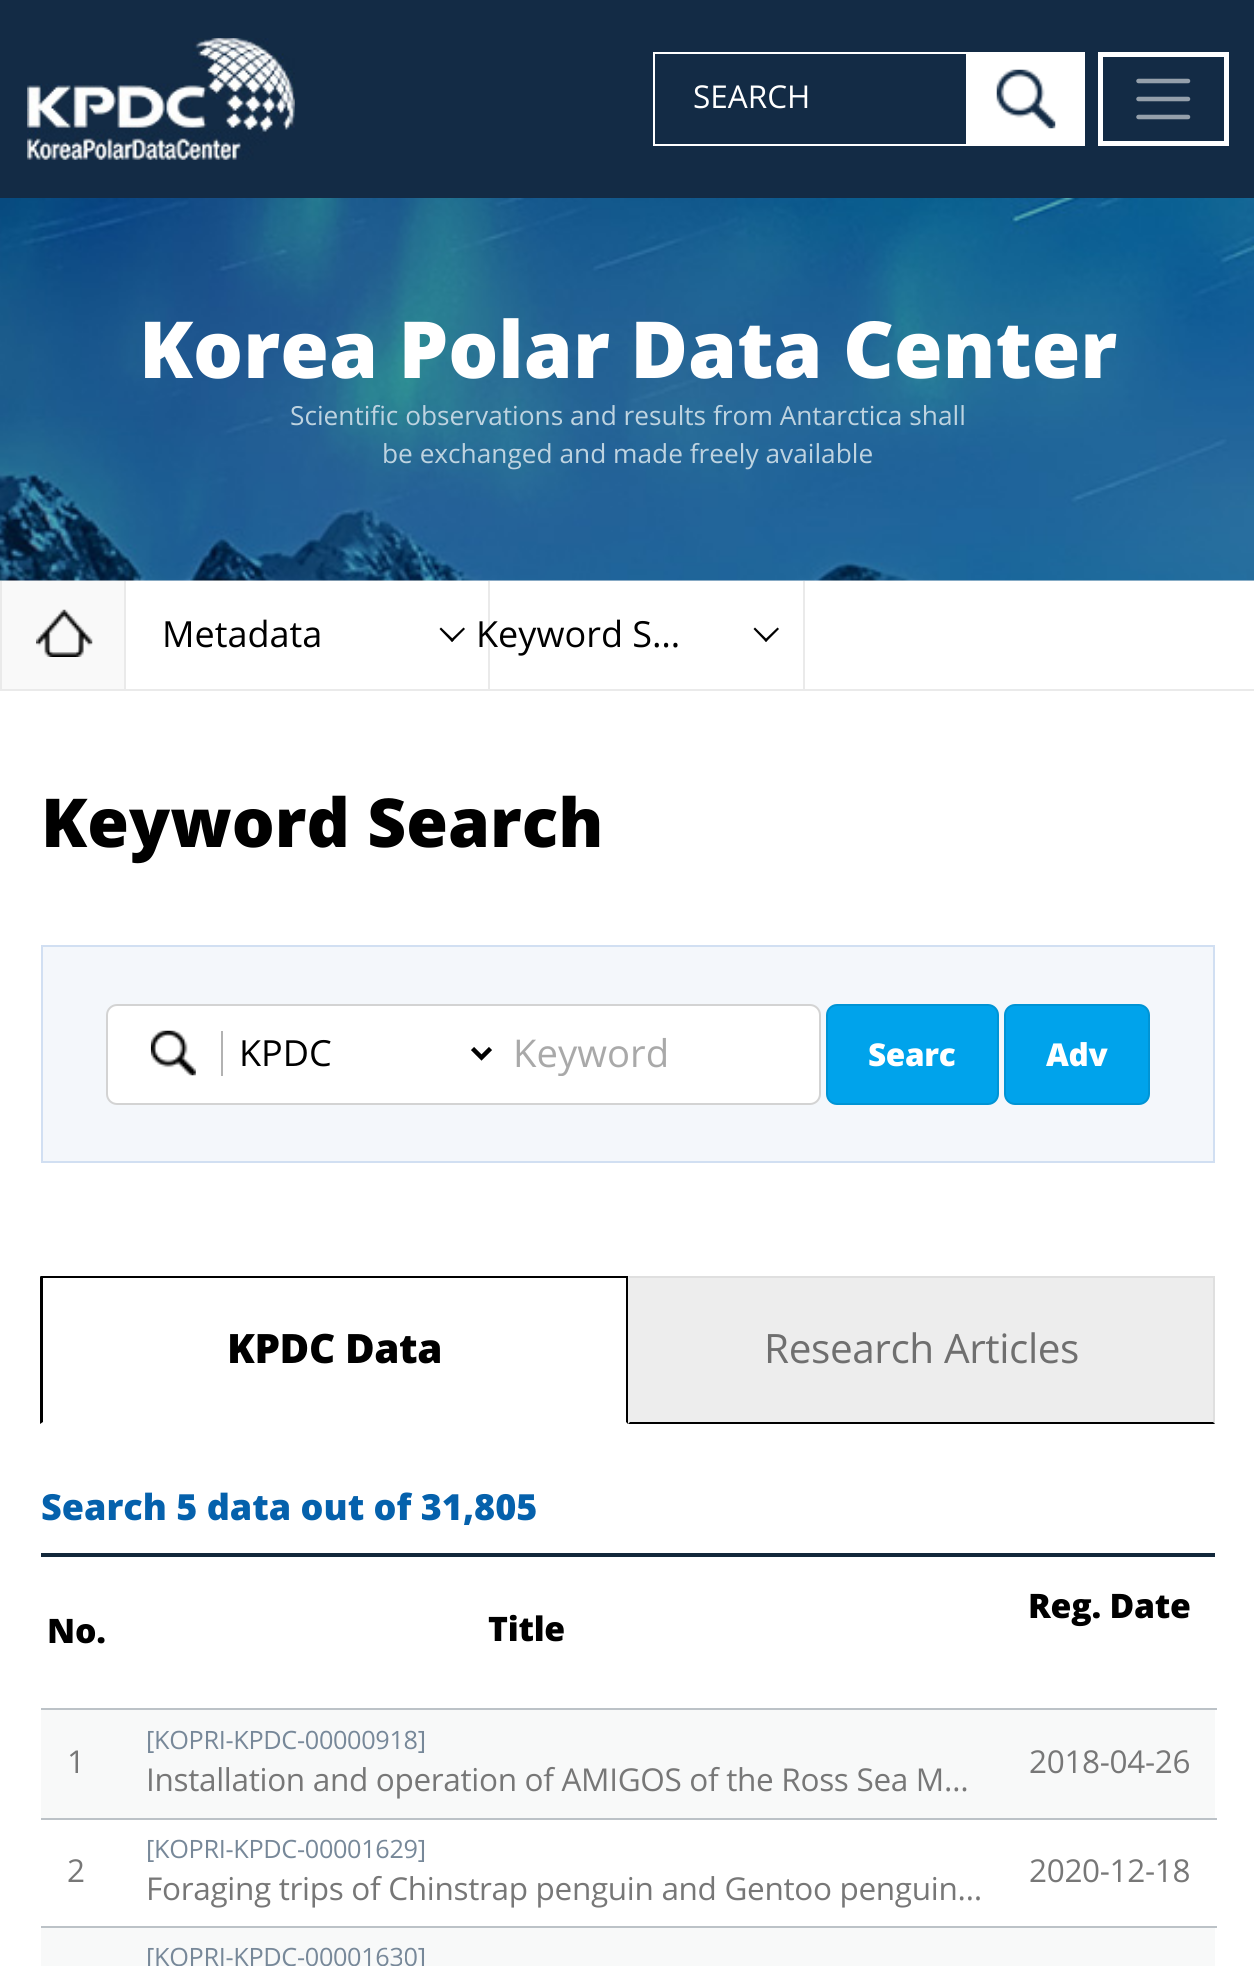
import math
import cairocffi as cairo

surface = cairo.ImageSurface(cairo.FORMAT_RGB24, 1254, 1966)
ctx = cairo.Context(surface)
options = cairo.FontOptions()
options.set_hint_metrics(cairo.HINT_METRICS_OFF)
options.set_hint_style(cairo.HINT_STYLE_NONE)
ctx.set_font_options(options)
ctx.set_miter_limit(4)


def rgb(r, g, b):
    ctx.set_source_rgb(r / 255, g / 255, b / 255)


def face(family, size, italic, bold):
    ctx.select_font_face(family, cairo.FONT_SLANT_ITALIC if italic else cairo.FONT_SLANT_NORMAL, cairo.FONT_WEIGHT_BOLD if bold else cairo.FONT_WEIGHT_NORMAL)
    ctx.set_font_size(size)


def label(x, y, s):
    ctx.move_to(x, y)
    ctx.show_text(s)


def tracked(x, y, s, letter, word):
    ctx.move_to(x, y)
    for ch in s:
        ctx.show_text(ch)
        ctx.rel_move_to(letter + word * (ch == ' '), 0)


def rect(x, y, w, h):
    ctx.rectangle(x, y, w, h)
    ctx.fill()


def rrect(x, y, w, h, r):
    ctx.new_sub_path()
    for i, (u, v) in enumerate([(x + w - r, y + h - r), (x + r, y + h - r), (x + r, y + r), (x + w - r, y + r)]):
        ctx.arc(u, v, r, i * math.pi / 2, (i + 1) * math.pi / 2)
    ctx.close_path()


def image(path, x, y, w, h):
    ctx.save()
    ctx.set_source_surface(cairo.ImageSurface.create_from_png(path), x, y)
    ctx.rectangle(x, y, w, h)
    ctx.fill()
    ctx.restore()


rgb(255, 255, 255)
ctx.paint()
rgb(19, 43, 69)
rect(0, 0, 1254, 198)
image('image0.png', 27, 38, 268, 122)
ctx.rectangle(654, 53, 313, 92)
rgb(255, 255, 255)
ctx.stroke()
rect(968, 52, 117, 94)
image('image1.png', 996, 69, 60, 60)
face('Open Sans', 31.5, 0, 0)
label(693, 108, 'SEARCH')
ctx.rectangle(1100.5, 54.5, 126, 89)
ctx.set_line_width(5)
ctx.stroke()
ctx.new_path()
ctx.move_to(1138.5, 81)
ctx.line_to(1188, 81)
ctx.move_to(1138.5, 99)
ctx.line_to(1188, 99)
ctx.move_to(1138.5, 117)
ctx.line_to(1188, 117)
rgb(149, 160, 171)
ctx.set_line_width(4.5)
ctx.set_line_cap(cairo.LINE_CAP_ROUND)
ctx.stroke()
rgb(238, 238, 238)
rect(0, 580, 1254, 1)
image('image2.png', 0, 198, 1254, 383)
face('Open Sans ExtraBold', 78.75, 0, 0)
rgb(255, 255, 255)
label(139, 378, 'Korea Polar Data Center')
face('Open Sans', 26.25, 0, 0)
rgb(190, 211, 224)
label(290, 425, 'Scientific observations and results from Antarctica shall')
label(382, 463, 'be exchanged and made freely available')
rgb(234, 234, 234)
rect(0, 689, 1254, 2)
rgb(249, 249, 249)
rect(2, 581, 122, 108)
rgb(234, 234, 234)
rect(124, 581, 2, 108)
rect(0, 581, 2, 108)
image('image3.png', 36, 609, 57, 48)
rect(488, 581, 2, 108)
face('Open Sans', 36, 0, 0)
rgb(0, 0, 0)
label(162, 647, 'Metadata')
ctx.new_path()
ctx.move_to(452, 642)
ctx.line_to(439.5, 629)
ctx.line_to(441, 627.5)
ctx.line_to(454, 640)
ctx.close_path()
ctx.fill()
ctx.new_path()
ctx.move_to(452, 642)
ctx.line_to(450.5, 640)
ctx.line_to(463.5, 627.5)
ctx.line_to(465, 629)
ctx.close_path()
ctx.fill()
rgb(234, 234, 234)
rect(803, 581, 2, 108)
rgb(0, 0, 0)
label(476, 647, 'Keyword S…')
ctx.new_path()
ctx.move_to(766, 642)
ctx.line_to(753.5, 629)
ctx.line_to(755, 627.5)
ctx.line_to(767.5, 640)
ctx.close_path()
ctx.fill()
ctx.new_path()
ctx.move_to(766, 642)
ctx.line_to(764.5, 640)
ctx.line_to(777.5, 627.5)
ctx.line_to(779, 629)
ctx.close_path()
ctx.fill()
face('Open Sans ExtraBold', 67.5, 0, 0)
label(41, 847, 'Keyword Search')
rgb(244, 247, 251)
ctx.rectangle(42, 946, 1172, 216)
ctx.fill_preserve()
rgb(209, 223, 242)
ctx.set_line_width(2)
ctx.set_line_cap(cairo.LINE_CAP_BUTT)
ctx.stroke()
rgb(255, 255, 255)
rrect(107, 1005, 713, 99, 10)
ctx.fill_preserve()
rgb(211, 211, 211)
ctx.stroke()
rgb(178, 178, 178)
rect(221, 1031, 2, 45)
image('image4.png', 150, 1030, 46, 46)
ctx.new_path()
ctx.move_to(472.5, 1048.5)
ctx.line_to(481.5, 1057.5)
ctx.line_to(490.5, 1048.5)
rgb(0, 0, 0)
ctx.set_line_width(4.5)
ctx.stroke()
face('Open Sans', 36, 0, 0)
label(239, 1066, 'KPDC')
ctx.save()
ctx.rectangle(513, 1031, 261, 45)
ctx.clip()
face('Open Sans', 38.25, 0, 0)
rgb(169, 169, 169)
label(513, 1067, 'Keyword')
ctx.restore()
rgb(0, 163, 235)
rrect(827, 1005, 171, 99, 10)
ctx.fill_preserve()
rgb(0, 148, 213)
ctx.set_line_width(2)
ctx.stroke()
face('Open Sans ExtraBold', 31.5, 0, 0)
rgb(255, 255, 255)
tracked(868, 1066, 'Searc', -0.32, 0)
rgb(0, 163, 235)
rrect(1005, 1005, 144, 99, 10)
ctx.fill_preserve()
rgb(0, 148, 213)
ctx.stroke()
rgb(255, 255, 255)
tracked(1046, 1066, 'Adv', -0.32, 0)
rgb(0, 0, 0)
rect(41, 1276, 587, 2)
ctx.new_path()
ctx.move_to(628, 1276)
ctx.line_to(628, 1424)
ctx.line_to(626, 1422)
ctx.line_to(626, 1278)
ctx.close_path()
ctx.fill()
ctx.new_path()
ctx.move_to(40, 1424)
ctx.line_to(40, 1276)
ctx.line_to(43, 1278)
ctx.line_to(43, 1422)
ctx.close_path()
ctx.fill()
face('Open Sans ExtraBold', 40.5, 0, 0)
tracked(227, 1363, 'KPDC Data', -0.4, 0)
rgb(237, 237, 237)
rect(628, 1276, 585, 148)
rgb(223, 223, 223)
ctx.new_path()
ctx.move_to(628, 1276)
ctx.line_to(1215, 1276)
ctx.line_to(1213, 1278)
ctx.line_to(630, 1278)
ctx.close_path()
ctx.fill()
rect(1213, 1276, 2, 148)
rgb(0, 0, 0)
ctx.new_path()
ctx.move_to(1215, 1424)
ctx.line_to(628, 1424)
ctx.line_to(630, 1422)
ctx.line_to(1213, 1422)
ctx.close_path()
ctx.fill()
face('Open Sans', 40.5, 0, 0)
rgb(111, 111, 111)
tracked(764, 1363, 'Research Articles', -0.4, 0)
face('Open Sans ExtraBold', 36, 0, 0)
rgb(5, 97, 172)
label(41, 1520, 'Search 5 data out of 31,805')
rgb(18, 39, 58)
rect(41, 1553, 1174, 4)
face('Open Sans ExtraBold', 33.75, 0, 0)
rgb(0, 0, 0)
tracked(47, 1643, 'No.', -0.25, 0)
tracked(488, 1641, 'Title', -0.25, 0)
rgb(188, 194, 199)
rect(41, 1708, 1176, 2)
rgb(0, 0, 0)
tracked(1028, 1618, 'Reg. Date', -0.25, 0)
rgb(248, 249, 249)
rect(41, 1710, 1174, 108)
face('Open Sans', 31.5, 0, 0)
rgb(119, 119, 119)
tracked(67, 1773, '1', -0.32, 0)
face('Open Sans', 25.25, 0, 0)
rgb(119, 136, 153)
tracked(146, 1749, '[KOPRI-KPDC-00000918]', -0.32, 0)
face('Open Sans', 31.5, 0, 0)
rgb(119, 119, 119)
tracked(146, 1791, 'Installation and operation of AMIGOS of the Ross Sea M…', -0.32, 0)
rgb(188, 194, 199)
rect(41, 1818, 1176, 2)
rgb(119, 119, 119)
tracked(1029, 1773, '2018-04-26', -0.32, 0)
tracked(67, 1882, '2', -0.32, 0)
face('Open Sans', 25.25, 0, 0)
rgb(119, 136, 153)
tracked(146, 1858, '[KOPRI-KPDC-00001629]', -0.32, 0)
face('Open Sans', 31.5, 0, 0)
rgb(119, 119, 119)
tracked(146, 1900, 'Foraging trips of Chinstrap penguin and Gentoo penguin…', -0.32, 0)
rgb(188, 194, 199)
rect(41, 1926, 1176, 2)
rgb(119, 119, 119)
tracked(1029, 1882, '2020-12-18', -0.32, 0)
rgb(248, 249, 249)
rect(41, 1928, 1174, 38)
face('Open Sans', 25.25, 0, 0)
rgb(119, 136, 153)
tracked(146, 1966, '[KOPRI-KPDC-00001630]', -0.32, 0)
surface.write_to_png('render.png')
